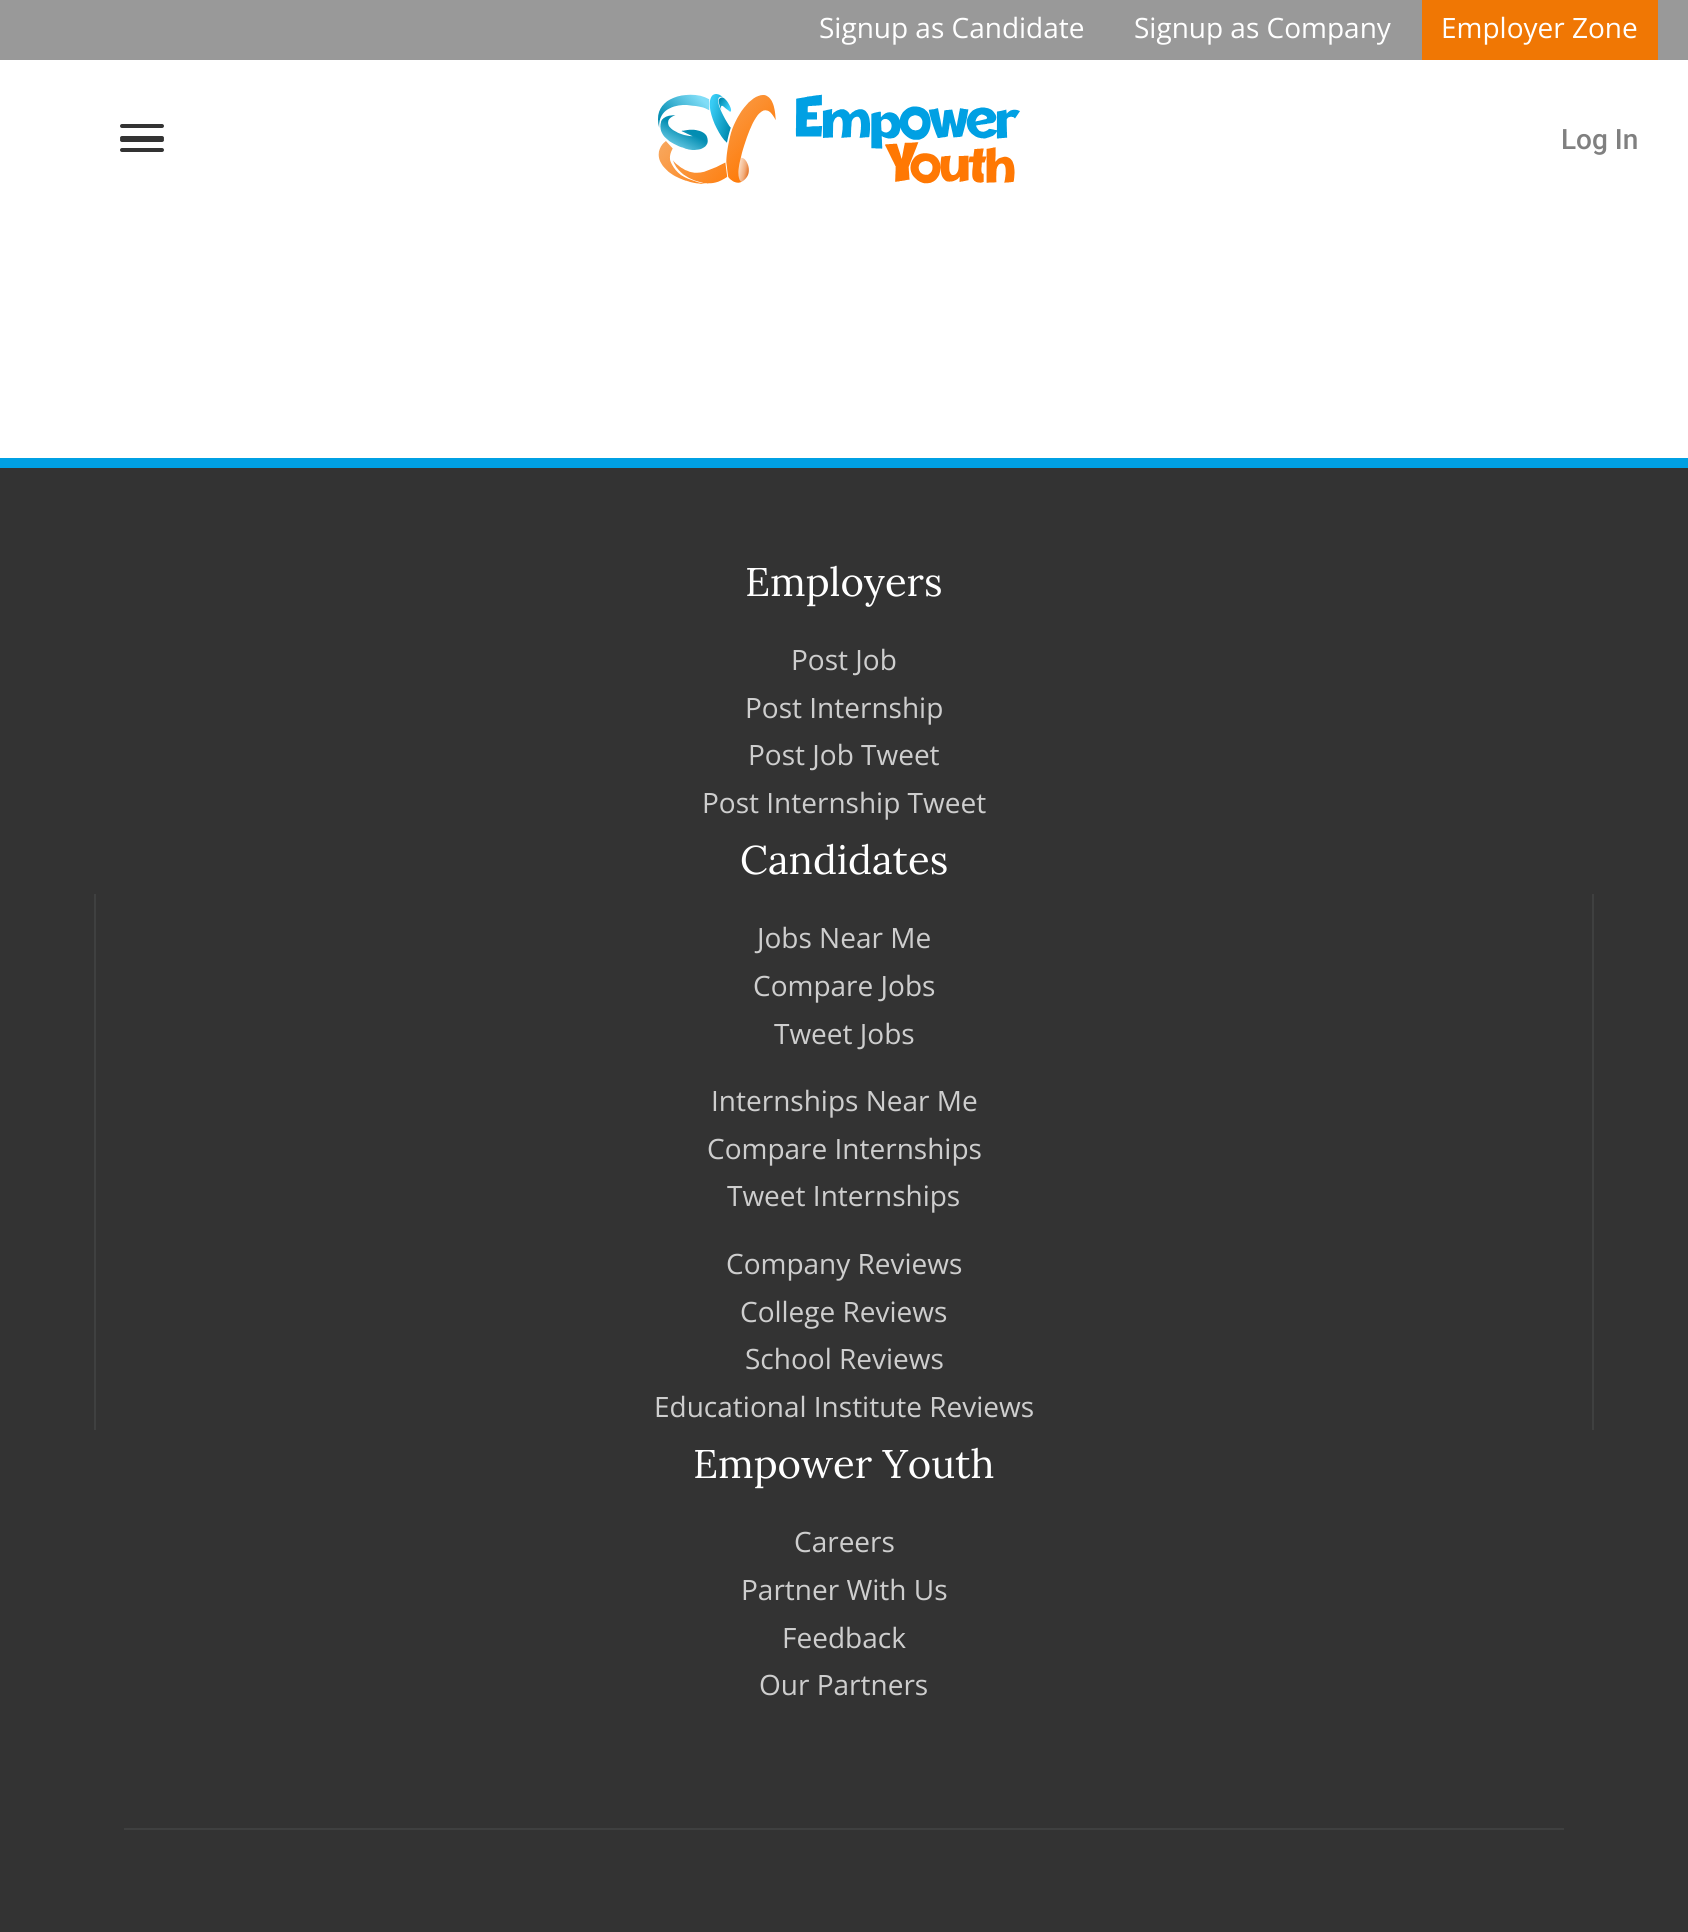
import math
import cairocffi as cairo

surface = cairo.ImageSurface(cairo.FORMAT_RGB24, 1688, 1932)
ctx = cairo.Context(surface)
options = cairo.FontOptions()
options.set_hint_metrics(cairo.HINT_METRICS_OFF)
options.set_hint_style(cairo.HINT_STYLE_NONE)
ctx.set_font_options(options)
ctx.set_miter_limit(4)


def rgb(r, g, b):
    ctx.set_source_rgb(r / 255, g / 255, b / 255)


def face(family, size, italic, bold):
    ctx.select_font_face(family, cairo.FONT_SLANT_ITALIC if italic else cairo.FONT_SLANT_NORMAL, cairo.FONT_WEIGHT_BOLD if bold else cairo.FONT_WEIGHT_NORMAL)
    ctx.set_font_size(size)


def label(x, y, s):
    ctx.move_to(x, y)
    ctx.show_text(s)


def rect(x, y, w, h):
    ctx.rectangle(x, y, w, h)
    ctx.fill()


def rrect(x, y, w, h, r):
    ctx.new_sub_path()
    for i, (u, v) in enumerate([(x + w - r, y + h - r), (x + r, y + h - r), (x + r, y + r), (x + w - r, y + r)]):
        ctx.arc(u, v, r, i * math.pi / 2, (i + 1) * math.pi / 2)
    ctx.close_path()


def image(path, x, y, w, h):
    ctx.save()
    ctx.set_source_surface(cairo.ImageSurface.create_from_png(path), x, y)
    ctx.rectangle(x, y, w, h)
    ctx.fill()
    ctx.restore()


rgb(255, 255, 255)
ctx.paint()
rgb(153, 153, 153)
rect(0, 0, 1688, 60)
face('Open Sans', 28, 0, 0)
rgb(255, 255, 255)
label(819, 38, 'Signup as Candidate')
label(1134, 38, 'Signup as Company')
rgb(240, 119, 4)
rect(1422, 0, 236, 60)
rgb(255, 255, 255)
label(1441, 38, 'Employer Zone')
rgb(51, 51, 51)
rrect(120, 124, 44, 4, 2)
ctx.fill()
rrect(120, 138, 44, 4, 2)
ctx.fill()
rrect(120, 136, 44, 4, 2)
ctx.fill()
rrect(120, 148, 44, 4, 2)
ctx.fill()
image('image0.png', 658, 94, 362, 90)
face('Roboto Medium', 28, 0, 0)
rgb(128, 128, 128)
label(1561, 149, 'Log In')
rgb(51, 51, 51)
rect(0, 468, 1688, 1464)
rgb(0, 160, 227)
rect(0, 458, 1688, 10)
rgb(63, 64, 64)
rect(124, 1828, 1440, 2)
face('Lora', 40, 0, 0)
rgb(255, 255, 255)
label(745, 596, 'Employers')
face('Open Sans', 28, 0, 0)
rgb(206, 206, 206)
label(791, 670, 'Post Job')
label(745, 718, 'Post Internship')
label(748, 765, 'Post Job Tweet')
label(702, 813, 'Post Internship Tweet')
face('Lora', 40, 0, 0)
rgb(255, 255, 255)
label(740, 874, 'Candidates')
rgb(63, 64, 64)
rect(1592, 894, 2, 536)
rect(94, 894, 2, 536)
face('Open Sans', 28, 0, 0)
rgb(206, 206, 206)
label(757, 948, 'Jobs Near Me')
label(753, 996, 'Compare Jobs')
label(774, 1044, 'Tweet Jobs')
label(711, 1111, 'Internships Near Me')
label(707, 1159, 'Compare Internships')
label(727, 1206, 'Tweet Internships')
label(726, 1274, 'Company Reviews')
label(740, 1322, 'College Reviews')
label(745, 1369, 'School Reviews')
label(654, 1417, 'Educational Institute Reviews')
face('Lora', 40, 0, 0)
rgb(255, 255, 255)
label(693, 1478, 'Empower Youth')
face('Open Sans', 28, 0, 0)
rgb(206, 206, 206)
label(794, 1552, 'Careers')
label(741, 1600, 'Partner With Us')
label(782, 1648, 'Feedback')
label(759, 1695, 'Our Partners')
surface.write_to_png('render.png')
